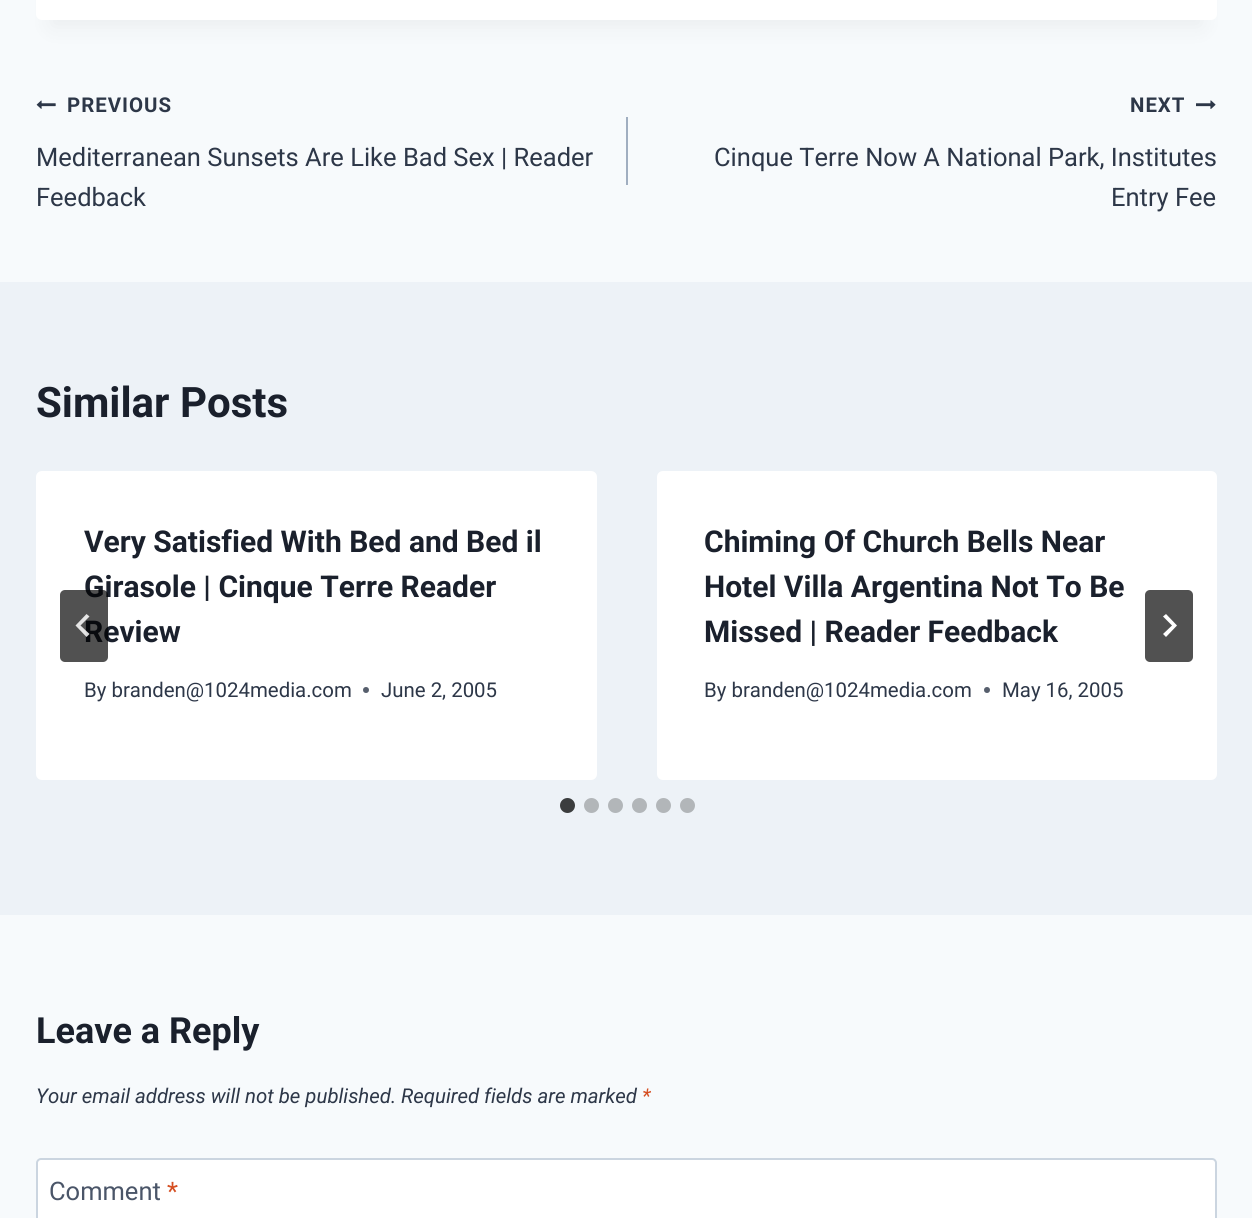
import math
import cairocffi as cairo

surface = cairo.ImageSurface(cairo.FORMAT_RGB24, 1252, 1218)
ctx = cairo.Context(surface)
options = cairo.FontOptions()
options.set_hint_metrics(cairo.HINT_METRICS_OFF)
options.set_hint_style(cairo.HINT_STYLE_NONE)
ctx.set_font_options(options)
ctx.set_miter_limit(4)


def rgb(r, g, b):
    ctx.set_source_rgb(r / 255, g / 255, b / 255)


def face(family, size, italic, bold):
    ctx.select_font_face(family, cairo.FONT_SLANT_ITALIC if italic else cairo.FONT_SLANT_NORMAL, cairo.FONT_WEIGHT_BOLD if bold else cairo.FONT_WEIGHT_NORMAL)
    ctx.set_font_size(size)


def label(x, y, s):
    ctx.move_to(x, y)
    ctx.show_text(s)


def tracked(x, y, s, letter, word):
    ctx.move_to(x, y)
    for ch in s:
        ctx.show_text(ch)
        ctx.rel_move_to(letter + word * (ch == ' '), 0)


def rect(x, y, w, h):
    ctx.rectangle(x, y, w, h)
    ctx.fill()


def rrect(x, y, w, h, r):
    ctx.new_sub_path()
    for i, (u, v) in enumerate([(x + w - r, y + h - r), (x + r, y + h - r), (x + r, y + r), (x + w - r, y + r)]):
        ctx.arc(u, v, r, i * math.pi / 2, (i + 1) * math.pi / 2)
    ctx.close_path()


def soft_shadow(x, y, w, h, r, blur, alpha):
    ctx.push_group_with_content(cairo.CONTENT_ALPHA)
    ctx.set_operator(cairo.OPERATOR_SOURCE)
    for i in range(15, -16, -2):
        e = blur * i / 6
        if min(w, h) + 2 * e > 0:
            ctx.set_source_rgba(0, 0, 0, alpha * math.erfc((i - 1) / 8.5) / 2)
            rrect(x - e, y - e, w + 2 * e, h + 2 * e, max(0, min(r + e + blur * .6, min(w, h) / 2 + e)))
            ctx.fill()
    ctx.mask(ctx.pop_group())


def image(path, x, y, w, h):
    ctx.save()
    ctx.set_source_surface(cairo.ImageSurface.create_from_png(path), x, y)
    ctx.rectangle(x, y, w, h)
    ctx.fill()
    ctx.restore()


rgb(247, 250, 252)
ctx.paint()
rgb(0, 0, 0)
soft_shadow(51, -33, 1151, 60, 0, 11, 0.05)
rgb(255, 255, 255)
rrect(36, -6, 1181, 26, 6)
ctx.fill()
image('image0.png', 36, 100, 20, 9)
face('Roboto', 20.4, 0, 1)
rgb(45, 55, 72)
tracked(67, 112, 'PREVIOUS', 1, 0)
face('Roboto', 25.5, 0, 0)
label(36, 166, 'Mediterranean Sunsets Are Like Bad Sex | Reader')
label(36, 206, 'Feedback')
rgb(160, 174, 192)
rect(626, 117, 2, 68)
face('Roboto', 20.4, 0, 1)
rgb(45, 55, 72)
tracked(1130, 112, 'NEXT', 1, 0)
image('image1.png', 1196, 100, 20, 9)
face('Roboto', 25.5, 0, 0)
label(714, 166, 'Cinque Terre Now A National Park, Institutes')
label(1111, 206, 'Entry Fee')
rgb(237, 242, 247)
rect(0, 282, 1252, 633)
face('Roboto', 42, 0, 1)
rgb(26, 32, 44)
label(36, 417, 'Similar Posts')
rgb(255, 255, 255)
rrect(36, 471, 561, 309, 6)
ctx.fill()
face('Roboto', 30, 0, 1)
rgb(26, 32, 44)
label(84, 552, 'Very Satisfied With Bed and Bed il')
label(84, 597, 'Girasole | Cinque Terre Reader')
label(84, 642, 'Review')
face('Roboto', 20.4, 0, 0)
rgb(45, 55, 72)
label(84, 697, 'By branden@1024media.com')
rgb(87, 95, 109)
ctx.new_path()
ctx.arc(366, 690, 3, 0, 2 * math.pi)
ctx.fill()
rgb(45, 55, 72)
label(381, 697, 'June 2, 2005')
rgb(255, 255, 255)
rrect(657, 471, 560, 309, 6)
ctx.fill()
face('Roboto', 30, 0, 1)
rgb(26, 32, 44)
label(704, 552, 'Chiming Of Church Bells Near')
label(704, 597, 'Hotel Villa Argentina Not To Be')
label(704, 642, 'Missed | Reader Feedback')
face('Roboto', 20.4, 0, 0)
rgb(45, 55, 72)
label(704, 697, 'By branden@1024media.com')
rgb(87, 95, 109)
ctx.new_path()
ctx.arc(987, 690, 3, 0, 2 * math.pi)
ctx.fill()
rgb(45, 55, 72)
label(1002, 697, 'May 16, 2005')
ctx.set_source_rgba(0, 0, 0, 0.68)
rrect(60, 590, 48, 72, 5)
ctx.fill()
ctx.set_source_rgba(1, 1, 1, 0.85)
ctx.new_path()
ctx.move_to(86.5, 614)
ctx.line_to(89.5, 616.5)
ctx.line_to(80.5, 625.5)
ctx.line_to(89.5, 634)
ctx.line_to(86.5, 637)
ctx.line_to(75.5, 625.5)
ctx.close_path()
ctx.fill()
rgb(81, 81, 81)
rrect(1145, 590, 48, 72, 5)
ctx.fill()
rgb(255, 255, 255)
ctx.new_path()
ctx.move_to(1166, 614)
ctx.line_to(1163, 616.5)
ctx.line_to(1172, 625.5)
ctx.line_to(1163, 634)
ctx.line_to(1166, 637)
ctx.line_to(1177, 625.5)
ctx.close_path()
ctx.fill()
rgb(59, 61, 62)
ctx.arc(567.5, 805.5, 7.5, 0, 2 * math.pi)
ctx.fill()
rgb(178, 182, 185)
ctx.arc(591.5, 805.5, 7.5, 0, 2 * math.pi)
ctx.fill()
ctx.arc(615.5, 805.5, 7.5, 0, 2 * math.pi)
ctx.fill()
ctx.arc(639.5, 805.5, 7.5, 0, 2 * math.pi)
ctx.fill()
ctx.arc(663.5, 805.5, 7.5, 0, 2 * math.pi)
ctx.fill()
ctx.arc(687.5, 805.5, 7.5, 0, 2 * math.pi)
ctx.fill()
face('Roboto', 36, 0, 1)
rgb(26, 32, 44)
label(36, 1043, 'Leave a Reply')
face('Roboto', 20.4, 1, 0)
rgb(45, 55, 72)
label(36, 1103, 'Your email address will not be published. Required fields are marked')
rgb(213, 78, 33)
label(642, 1103, '*')
rgb(255, 255, 255)
rrect(37, 1159, 1179, 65, 4)
ctx.fill_preserve()
rgb(203, 213, 224)
ctx.stroke()
face('Roboto', 25.5, 0, 0)
rgb(74, 85, 104)
label(49, 1200, 'Comment')
rgb(213, 78, 33)
label(167, 1200, '*')
surface.write_to_png('render.png')
